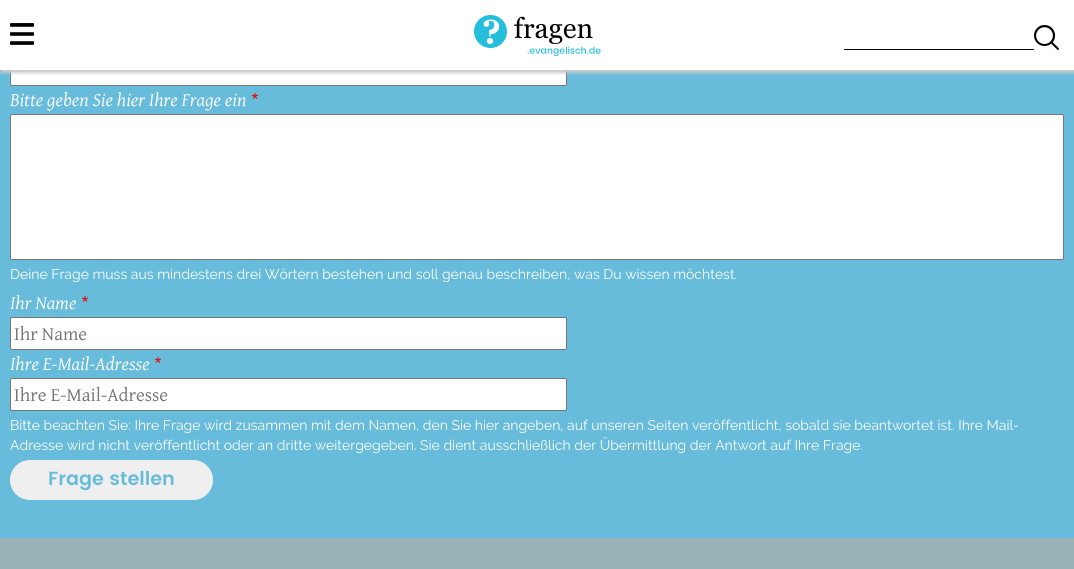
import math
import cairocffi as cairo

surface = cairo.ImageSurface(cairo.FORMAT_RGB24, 1074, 569)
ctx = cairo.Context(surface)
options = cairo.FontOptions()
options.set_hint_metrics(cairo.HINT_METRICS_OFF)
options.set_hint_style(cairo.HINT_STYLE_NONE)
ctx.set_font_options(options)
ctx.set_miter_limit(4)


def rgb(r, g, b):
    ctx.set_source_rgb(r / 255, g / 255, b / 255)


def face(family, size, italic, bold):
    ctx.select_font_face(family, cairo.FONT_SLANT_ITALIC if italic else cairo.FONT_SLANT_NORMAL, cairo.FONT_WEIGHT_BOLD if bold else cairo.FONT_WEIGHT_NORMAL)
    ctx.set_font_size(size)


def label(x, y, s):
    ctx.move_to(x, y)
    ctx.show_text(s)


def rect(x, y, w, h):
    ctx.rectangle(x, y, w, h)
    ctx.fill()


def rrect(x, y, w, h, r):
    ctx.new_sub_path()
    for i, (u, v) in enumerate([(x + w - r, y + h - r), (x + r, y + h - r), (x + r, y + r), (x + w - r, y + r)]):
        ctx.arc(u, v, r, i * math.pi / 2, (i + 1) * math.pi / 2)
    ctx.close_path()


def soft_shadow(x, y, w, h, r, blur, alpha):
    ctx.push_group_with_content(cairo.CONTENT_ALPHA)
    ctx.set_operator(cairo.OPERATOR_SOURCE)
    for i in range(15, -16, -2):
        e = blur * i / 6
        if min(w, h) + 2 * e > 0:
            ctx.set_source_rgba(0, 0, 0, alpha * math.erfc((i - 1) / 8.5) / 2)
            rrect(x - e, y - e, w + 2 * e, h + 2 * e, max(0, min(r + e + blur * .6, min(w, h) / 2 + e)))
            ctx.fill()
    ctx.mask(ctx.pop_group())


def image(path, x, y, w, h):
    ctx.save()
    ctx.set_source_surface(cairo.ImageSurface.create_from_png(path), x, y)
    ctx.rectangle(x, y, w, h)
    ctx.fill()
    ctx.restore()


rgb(153, 178, 183)
ctx.paint()
rgb(103, 188, 219)
rect(0, 70, 1074, 468)
rgb(255, 255, 255)
rrect(10.5, 53.5, 556, 32, 1.5)
ctx.fill_preserve()
rgb(118, 118, 118)
ctx.set_line_width(1)
ctx.stroke()
rgb(200, 200, 200)
soft_shadow(1, 3, 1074, 70, 0, 1.5, 1)
rgb(255, 255, 255)
rect(0, 0, 1074, 70)
image('image0.png', 10, 23, 24, 22)
image('image1.png', 474, 15, 127, 42)
rgb(0, 0, 0)
rect(844, 49, 190, 1)
image('image2.png', 1034, 25, 25, 25)
face('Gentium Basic', 19, 1, 0)
rgb(255, 255, 255)
label(10, 106, 'Bitte geben Sie hier Ihre Frage ein')
image('image3.png', 252, 93, 6, 6)
rrect(10.5, 114.5, 1053, 145, 1.5)
ctx.fill_preserve()
rgb(118, 118, 118)
ctx.stroke()
face('Raleway', 14, 0, 0)
rgb(255, 255, 255)
label(10, 279, 'Deine Frage muss aus mindestens drei Wörtern bestehen und soll genau beschreiben, was Du wissen möchtest.')
face('Gentium Basic', 19, 1, 0)
label(10, 309, 'Ihr Name')
image('image3.png', 82, 296, 6, 6)
rrect(10.5, 317.5, 556, 32, 1.5)
ctx.fill_preserve()
rgb(118, 118, 118)
ctx.stroke()
face('Gentium Basic', 19, 0, 0)
rgb(117, 117, 117)
label(14, 340, 'Ihr Name')
face('Gentium Basic', 19, 1, 0)
rgb(255, 255, 255)
label(10, 370, 'Ihre E-Mail-Adresse')
image('image3.png', 155, 357, 6, 6)
rrect(10.5, 378.5, 556, 32, 1.5)
ctx.fill_preserve()
rgb(118, 118, 118)
ctx.stroke()
face('Gentium Basic', 19, 0, 0)
rgb(117, 117, 117)
label(14, 401, 'Ihre E-Mail-Adresse')
face('Raleway', 14, 0, 0)
rgb(255, 255, 255)
label(10, 430, 'Bitte beachten Sie: Ihre Frage wird zusammen mit dem Namen, den Sie hier angeben, auf unseren Seiten veröffentlicht, sobald sie beantwortet ist. Ihre Mail-')
label(10, 450, 'Adresse wird nicht veröffentlicht oder an dritte weitergegeben. Sie dient ausschließlich der Übermittlung der Antwort auf Ihre Frage.')
rgb(239, 239, 239)
rrect(10, 460, 203, 40, 20)
ctx.fill()
face('Poppins SemiBold', 19, 0, 0)
rgb(103, 188, 219)
label(48, 485, 'Frage stellen')
surface.write_to_png('render.png')
